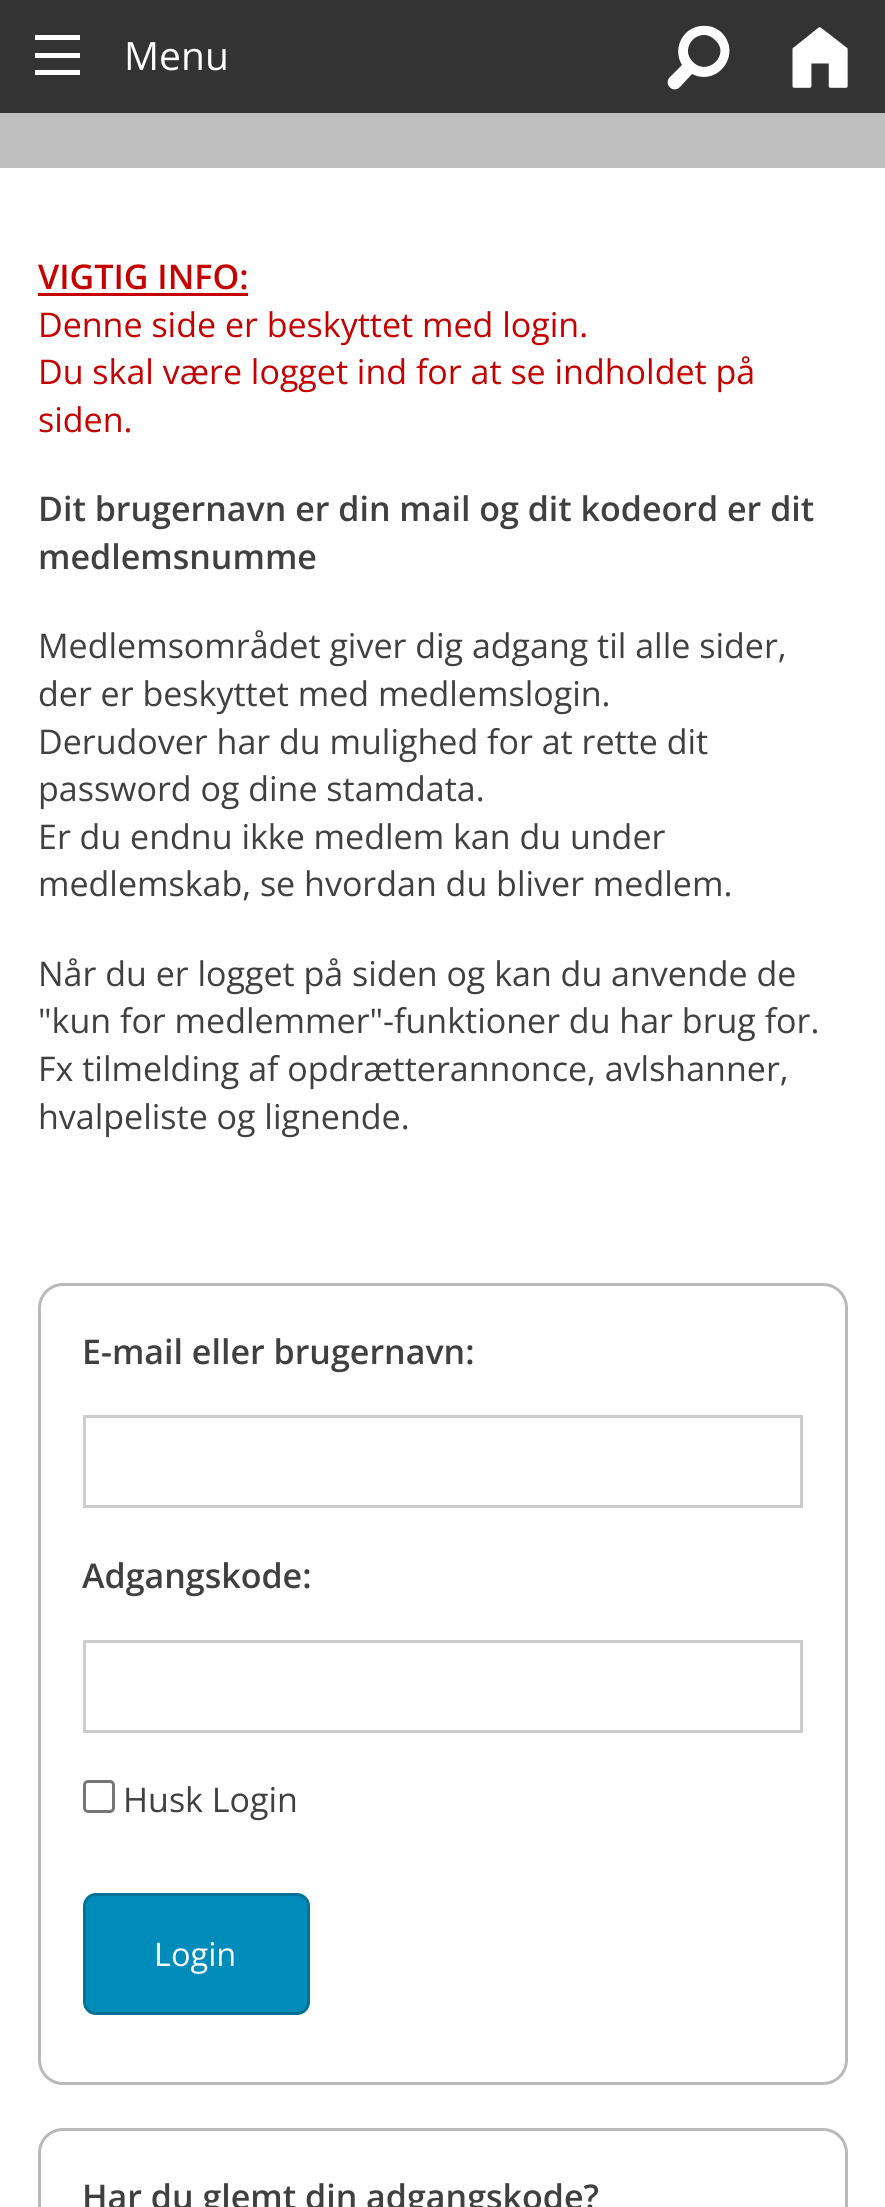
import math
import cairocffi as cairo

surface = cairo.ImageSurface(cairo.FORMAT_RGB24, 885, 2207)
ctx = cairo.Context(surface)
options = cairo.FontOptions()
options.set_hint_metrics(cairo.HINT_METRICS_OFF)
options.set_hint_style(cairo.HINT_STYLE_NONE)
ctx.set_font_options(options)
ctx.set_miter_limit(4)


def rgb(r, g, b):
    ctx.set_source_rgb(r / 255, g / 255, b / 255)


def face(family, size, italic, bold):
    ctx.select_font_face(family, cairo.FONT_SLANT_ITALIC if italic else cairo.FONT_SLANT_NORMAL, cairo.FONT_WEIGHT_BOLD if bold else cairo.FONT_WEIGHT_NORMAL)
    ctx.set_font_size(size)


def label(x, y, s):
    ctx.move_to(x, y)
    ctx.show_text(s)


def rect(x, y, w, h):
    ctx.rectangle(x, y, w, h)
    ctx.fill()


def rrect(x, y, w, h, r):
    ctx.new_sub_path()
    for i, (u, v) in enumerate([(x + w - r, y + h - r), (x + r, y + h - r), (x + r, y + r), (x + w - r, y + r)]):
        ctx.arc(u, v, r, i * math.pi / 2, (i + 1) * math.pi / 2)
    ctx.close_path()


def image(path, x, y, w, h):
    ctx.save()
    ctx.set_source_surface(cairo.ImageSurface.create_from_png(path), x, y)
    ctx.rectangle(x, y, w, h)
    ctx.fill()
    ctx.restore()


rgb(192, 192, 192)
ctx.paint()
rgb(51, 51, 51)
rect(0, 0, 885, 113)
rgb(255, 255, 255)
rect(35, 70, 45, 5)
rect(35, 53, 45, 5)
rect(35, 35, 45, 5)
face('Open Sans', 39, 0, 0)
label(124, 70, 'Menu')
ctx.new_path()
ctx.move_to(686, 33)
ctx.curve_to(691, 28, 699, 25, 707, 26)
ctx.curve_to(712, 26, 718, 29, 722, 33)
ctx.curve_to(742, 54, 718, 87, 692, 74)
ctx.line_to(680, 87)
ctx.curve_to(673, 94, 663, 84, 670, 77)
ctx.line_to(682, 65)
ctx.curve_to(676, 55, 677, 42, 686, 33)
ctx.close_path()
ctx.move_to(693, 62)
ctx.curve_to(708, 77, 731, 54, 715, 40)
ctx.curve_to(700, 25, 678, 47, 693, 62)
ctx.close_path()
ctx.fill()
image('image0.png', 792, 27, 56, 61)
rect(0, 168, 885, 2039)
face('Open Sans SemiBold', 34, 0, 0)
rgb(196, 0, 0)
label(38, 289, 'VIGTIG INFO:')
rect(38, 293, 210, 3)
face('Open Sans', 34, 0, 0)
label(38, 337, 'Denne side er beskyttet med login.')
label(38, 384, 'Du skal være logget ind for at se indholdet på')
label(38, 432, 'siden.')
face('Open Sans SemiBold', 34, 0, 0)
rgb(64, 64, 64)
label(38, 521, 'Dit brugernavn er din mail og dit kodeord er dit')
label(38, 569, 'medlemsnumme')
face('Open Sans', 34, 0, 0)
label(38, 658, 'Medlemsområdet giver dig adgang til alle sider,')
label(38, 706, 'der er beskyttet med medlemslogin.')
label(38, 754, 'Derudover har du mulighed for at rette dit')
label(38, 801, 'password og dine stamdata.')
label(38, 849, 'Er du endnu ikke medlem kan du under')
label(38, 896, 'medlemskab, se hvordan du bliver medlem.')
label(38, 986, 'Når du er logget på siden og kan du anvende de')
label(38, 1033, '"kun for medlemmer"-funktioner du har brug for.')
label(38, 1081, 'Fx tilmelding af opdrætterannonce, avlshanner,')
label(38, 1129, 'hvalpeliste og lignende.')
rrect(39.5, 1284.5, 807, 799, 23.5)
rgb(185, 185, 185)
ctx.set_line_width(3)
ctx.stroke()
face('Open Sans SemiBold', 34, 0, 0)
rgb(64, 64, 64)
label(82, 1364, 'E-mail eller brugernavn:')
ctx.rectangle(84.5, 1416.5, 717, 90)
rgb(204, 204, 204)
ctx.stroke()
rgb(64, 64, 64)
label(82, 1588, 'Adgangskode:')
ctx.rectangle(84.5, 1641.5, 717, 90)
rgb(204, 204, 204)
ctx.stroke()
rrect(84.5, 1781.5, 29, 30, 3.5)
rgb(118, 118, 118)
ctx.stroke()
face('Open Sans', 34, 0, 0)
rgb(64, 64, 64)
label(123, 1812, 'Husk Login')
rgb(0, 140, 186)
rrect(84.5, 1894.5, 224, 119, 11.5)
ctx.fill_preserve()
rgb(0, 112, 149)
ctx.stroke()
face('Open Sans', 32.5, 0, 0)
rgb(255, 255, 255)
label(154, 1966, 'Login')
rrect(39.5, 2129.5, 807, 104, 23.5)
rgb(185, 185, 185)
ctx.stroke()
face('Open Sans SemiBold', 34, 0, 0)
rgb(64, 64, 64)
label(82, 2209, 'Har du glemt din adgangskode?')
surface.write_to_png('render.png')
